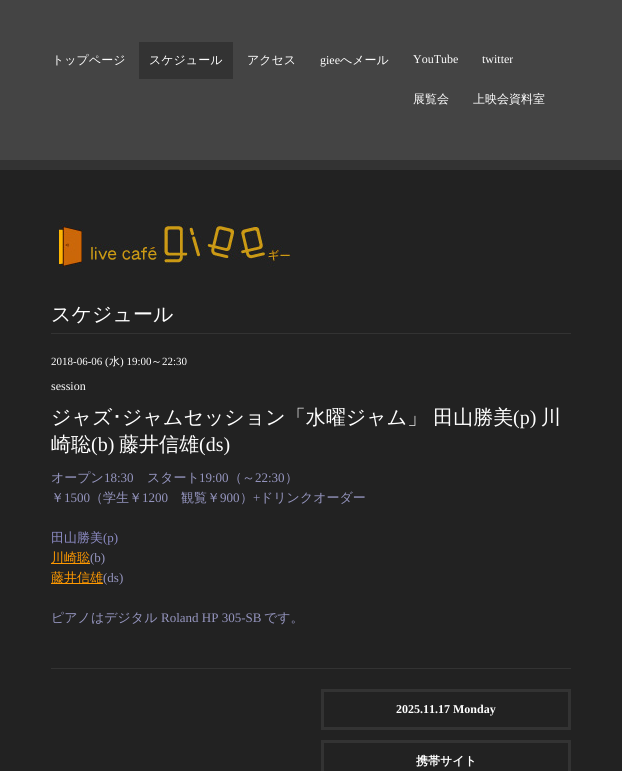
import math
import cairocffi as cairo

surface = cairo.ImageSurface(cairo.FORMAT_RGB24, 622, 771)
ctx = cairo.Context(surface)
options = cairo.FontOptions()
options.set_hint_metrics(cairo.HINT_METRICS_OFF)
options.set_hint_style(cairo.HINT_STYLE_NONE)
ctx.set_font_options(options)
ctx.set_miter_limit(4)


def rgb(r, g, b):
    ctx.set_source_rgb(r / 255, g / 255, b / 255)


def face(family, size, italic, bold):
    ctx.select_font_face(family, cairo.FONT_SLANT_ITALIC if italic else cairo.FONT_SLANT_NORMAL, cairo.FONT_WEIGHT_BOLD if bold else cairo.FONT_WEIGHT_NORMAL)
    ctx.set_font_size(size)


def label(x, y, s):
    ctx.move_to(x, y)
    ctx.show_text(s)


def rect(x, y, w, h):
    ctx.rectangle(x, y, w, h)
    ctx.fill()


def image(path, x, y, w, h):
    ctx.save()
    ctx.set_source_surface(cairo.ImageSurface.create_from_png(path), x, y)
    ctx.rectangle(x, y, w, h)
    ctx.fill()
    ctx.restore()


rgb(34, 34, 34)
ctx.paint()
rgb(68, 68, 68)
rect(0, 0, 622, 160)
rgb(51, 51, 51)
rect(0, 160, 622, 10)
face('WenQuanYi Zen Hei Medium', 12, 0, 0)
rgb(255, 255, 255)
label(52, 64, 'トップページ')
rgb(51, 51, 51)
rect(139, 42, 94, 37)
rgb(255, 255, 255)
label(149, 64, 'スケジュール')
label(247, 64, 'アクセス')
face('Liberation Serif', 12, 0, 0)
label(320, 64, 'giee')
face('WenQuanYi Zen Hei Medium', 12, 0, 0)
label(340, 64, 'へメール')
face('Liberation Serif', 12, 0, 0)
label(413, 63, 'YouTube')
label(482, 63, 'twitter')
face('WenQuanYi Zen Hei Medium', 12, 0, 0)
label(413, 103, '展覧会')
label(473, 103, '上映会資料室')
image('image0.png', 59, 220, 232, 48)
rgb(51, 51, 51)
rect(51, 333, 520, 1)
face('WenQuanYi Zen Hei Medium', 20, 0, 0)
rgb(255, 255, 255)
label(51, 321, 'スケジュール')
rgb(51, 51, 51)
rect(51, 668, 520, 1)
face('Liberation Serif', 11, 0, 0)
rgb(255, 255, 255)
label(51, 365, '2018-06-06 (')
face('WenQuanYi Zen Hei Medium', 11, 0, 0)
label(109, 365, '水')
face('Liberation Serif', 11, 0, 0)
label(120, 365, ') 19:00')
face('WenQuanYi Zen Hei Medium', 11, 0, 0)
label(151, 365, '～')
face('Liberation Serif', 11, 0, 0)
label(162, 365, '22:30')
face('Liberation Serif', 12, 0, 0)
label(51, 390, 'session')
face('WenQuanYi Zen Hei Medium', 20, 0, 0)
label(51, 424, 'ジャズ')
face('IPAPGothic', 20, 0, 0)
label(112, 424, '･')
face('WenQuanYi Zen Hei Medium', 20, 0, 0)
label(122, 424, 'ジャムセッション「水曜ジャム」 田山勝美')
face('Liberation Serif', 20, 0, 0)
label(513, 424, '(p)')
face('WenQuanYi Zen Hei Medium', 20, 0, 0)
label(541, 424, '川')
label(51, 451, '崎聡')
face('Liberation Serif', 20, 0, 0)
label(91, 451, '(b)')
face('WenQuanYi Zen Hei Medium', 20, 0, 0)
label(119, 451, '藤井信雄')
face('Liberation Serif', 20, 0, 0)
label(199, 451, '(ds)')
face('WenQuanYi Zen Hei Medium', 13, 0, 0)
rgb(149, 149, 191)
label(51, 482, 'オープン')
face('Liberation Serif', 13, 0, 0)
label(104, 482, '18:30')
face('WenQuanYi Zen Hei Medium', 13, 0, 0)
label(147, 482, 'スタート')
face('Liberation Serif', 13, 0, 0)
label(199, 482, '19:00')
face('WenQuanYi Zen Hei Medium', 13, 0, 0)
label(229, 482, '（～')
face('Liberation Serif', 13, 0, 0)
label(255, 482, '22:30')
face('WenQuanYi Zen Hei Medium', 13, 0, 0)
label(285, 482, '）')
label(51, 502, '￥')
face('Liberation Serif', 13, 0, 0)
label(64, 502, '1500')
face('WenQuanYi Zen Hei Medium', 13, 0, 0)
label(90, 502, '（学生￥')
face('Liberation Serif', 13, 0, 0)
label(142, 502, '1200')
face('WenQuanYi Zen Hei Medium', 13, 0, 0)
label(181, 502, '観覧￥')
face('Liberation Serif', 13, 0, 0)
label(220, 502, '900')
face('WenQuanYi Zen Hei Medium', 13, 0, 0)
label(240, 502, '）')
face('Liberation Serif', 13, 0, 0)
label(253, 502, '+')
face('WenQuanYi Zen Hei Medium', 13, 0, 0)
label(260, 502, 'ドリンクオーダー')
rgb(140, 139, 196)
label(51, 542, '田山勝美')
face('Liberation Serif', 13, 0, 0)
label(103, 542, '(p)')
rgb(255, 153, 0)
rect(51, 563, 39, 1)
face('WenQuanYi Zen Hei Medium', 13, 0, 0)
label(51, 562, '川崎聡')
face('Liberation Serif', 13, 0, 0)
rgb(149, 149, 191)
label(90, 562, '(b)')
rgb(255, 153, 0)
rect(51, 583, 52, 1)
face('WenQuanYi Zen Hei Medium', 13, 0, 0)
label(51, 582, '藤井信雄')
face('Liberation Serif', 13, 0, 0)
rgb(149, 149, 191)
label(103, 582, '(ds)')
face('WenQuanYi Zen Hei Medium', 13, 0, 0)
label(51, 622, 'ピアノはデジタル')
face('Liberation Serif', 13, 0, 0)
label(161, 622, 'Roland HP 305-SB')
face('WenQuanYi Zen Hei Medium', 13, 0, 0)
label(264, 622, 'です。')
ctx.rectangle(322.5, 690.5, 247, 38)
rgb(51, 51, 51)
ctx.set_line_width(3)
ctx.stroke()
face('Liberation Serif', 12, 0, 1)
rgb(255, 255, 255)
label(396, 713, '2025.11.17 Monday')
ctx.rectangle(322.5, 741.5, 247, 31)
rgb(51, 51, 51)
ctx.stroke()
face('WenQuanYi Zen Hei', 12, 0, 1)
rgb(255, 255, 255)
label(416, 765, '携帯サイト')
surface.write_to_png('render.png')
